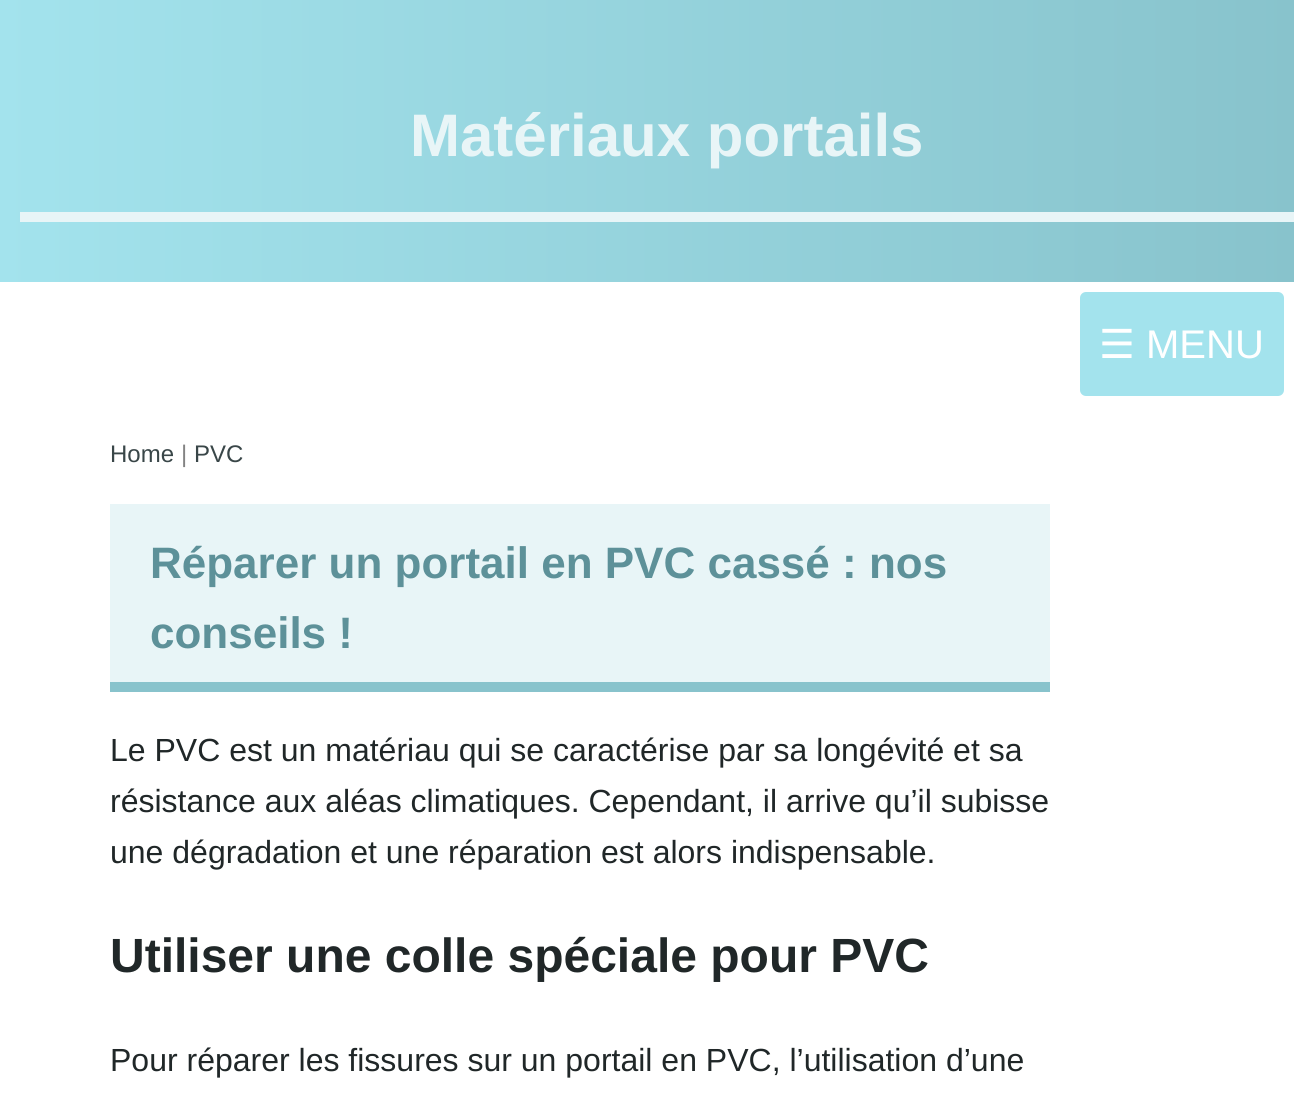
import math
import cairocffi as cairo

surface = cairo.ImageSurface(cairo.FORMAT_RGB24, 1294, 1096)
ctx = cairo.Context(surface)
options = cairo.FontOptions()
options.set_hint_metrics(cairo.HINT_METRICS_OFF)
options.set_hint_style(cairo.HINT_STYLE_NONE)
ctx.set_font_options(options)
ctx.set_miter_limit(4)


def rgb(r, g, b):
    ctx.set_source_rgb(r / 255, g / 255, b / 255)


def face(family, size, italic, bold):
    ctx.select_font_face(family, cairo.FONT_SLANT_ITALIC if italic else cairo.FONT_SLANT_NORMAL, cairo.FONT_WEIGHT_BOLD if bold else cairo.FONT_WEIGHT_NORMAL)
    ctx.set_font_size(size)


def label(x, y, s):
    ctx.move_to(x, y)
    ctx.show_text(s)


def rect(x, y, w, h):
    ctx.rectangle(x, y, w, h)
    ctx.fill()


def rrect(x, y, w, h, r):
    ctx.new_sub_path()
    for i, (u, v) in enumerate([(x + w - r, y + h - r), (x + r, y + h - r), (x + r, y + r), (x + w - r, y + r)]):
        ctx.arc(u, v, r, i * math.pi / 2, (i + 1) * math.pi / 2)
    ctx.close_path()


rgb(255, 255, 255)
ctx.paint()
gradient = cairo.LinearGradient(0, 141, 1294, 141)
gradient.add_color_stop_rgba(0, 0.639, 0.89, 0.929, 1)
gradient.add_color_stop_rgba(1, 0.533, 0.765, 0.8, 1)
ctx.set_source(gradient)
rect(0, 0, 1294, 282)
rgb(232, 245, 247)
rect(20, 212, 1274, 10)
face('Liberation Sans', 60, 0, 1)
label(410, 156, 'Matériaux portails')
rgb(163, 227, 237)
rrect(1080, 292, 204, 104, 6)
ctx.fill()
face('DejaVu Sans', 40, 0, 0)
rgb(255, 255, 255)
label(1099, 358, '☰')
face('Liberation Sans', 40, 0, 0)
label(1146, 358, 'MENU')
face('Liberation Sans', 24, 0, 0)
rgb(57, 70, 72)
label(110, 462, 'Home')
rgb(131, 131, 131)
label(181, 462, '|')
rgb(57, 70, 72)
label(194, 462, 'PVC')
rgb(232, 245, 247)
rect(110, 504, 940, 178)
rgb(136, 195, 204)
rect(110, 682, 940, 10)
face('Liberation Sans', 44, 0, 1)
rgb(93, 145, 153)
label(150, 578, 'Réparer un portail en PVC cassé : nos')
label(150, 648, 'conseils !')
face('Liberation Sans', 32, 0, 0)
rgb(32, 39, 40)
label(110, 761, 'Le PVC est un matériau qui se caractérise par sa longévité et sa')
label(110, 812, 'résistance aux aléas climatiques. Cependant, il arrive qu’il subisse')
label(110, 863, 'une dégradation et une réparation est alors indispensable.')
face('Liberation Sans', 48, 0, 1)
label(110, 972, 'Utiliser une colle spéciale pour PVC')
face('Liberation Sans', 32, 0, 0)
label(110, 1071, 'Pour réparer les fissures sur un portail en PVC, l’utilisation d’une')
surface.write_to_png('render.png')
